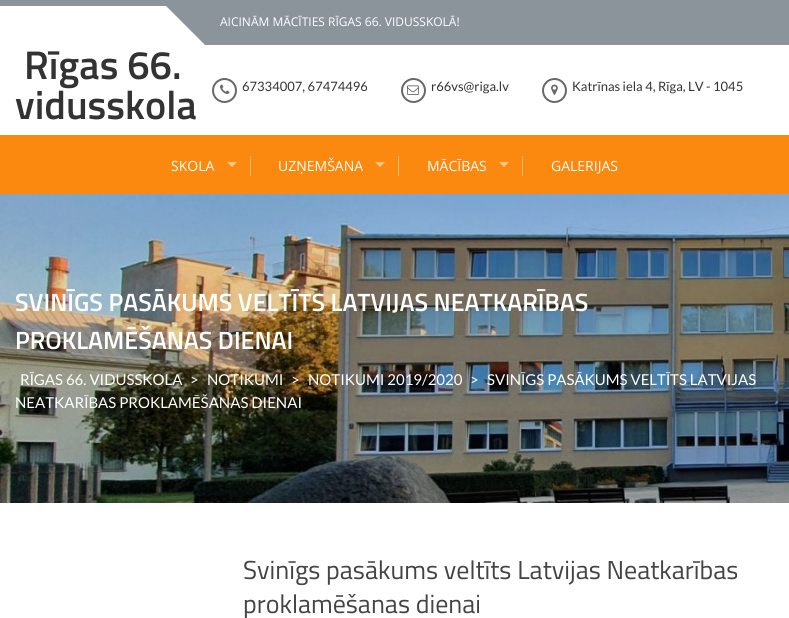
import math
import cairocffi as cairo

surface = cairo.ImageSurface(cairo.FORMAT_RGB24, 789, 618)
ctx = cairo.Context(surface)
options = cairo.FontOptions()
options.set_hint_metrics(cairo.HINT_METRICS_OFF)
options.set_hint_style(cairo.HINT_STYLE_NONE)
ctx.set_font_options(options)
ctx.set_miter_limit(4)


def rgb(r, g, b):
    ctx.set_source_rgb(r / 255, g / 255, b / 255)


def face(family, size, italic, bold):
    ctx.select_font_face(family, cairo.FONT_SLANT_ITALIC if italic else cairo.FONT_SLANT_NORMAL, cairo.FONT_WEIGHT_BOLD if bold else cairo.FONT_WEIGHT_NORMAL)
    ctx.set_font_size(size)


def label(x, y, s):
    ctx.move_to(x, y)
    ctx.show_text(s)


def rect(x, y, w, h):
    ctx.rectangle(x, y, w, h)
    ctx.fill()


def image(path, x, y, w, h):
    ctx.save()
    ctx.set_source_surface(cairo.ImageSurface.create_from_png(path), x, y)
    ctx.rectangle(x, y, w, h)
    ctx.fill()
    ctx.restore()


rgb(255, 255, 255)
ctx.paint()
rgb(139, 148, 155)
rect(0, 0, 789, 6)
rect(205, 6, 584, 39)
ctx.new_path()
ctx.move_to(166, 6)
ctx.line_to(205, 6)
ctx.line_to(205, 45)
ctx.close_path()
ctx.fill()
face('Open Sans', 12, 0, 0)
rgb(255, 255, 255)
label(220, 26, 'AICINĀM MĀCĪTIES RĪGAS 66. VIDUSSKOLĀ!')
face('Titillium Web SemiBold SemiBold', 40, 0, 0)
rgb(51, 51, 51)
label(24, 79, 'Rīgas 66.')
label(15, 119, 'vidusskola')
ctx.new_path()
ctx.arc(224.5, 90.5, 11.5, 0, 2 * math.pi)
rgb(104, 104, 104)
ctx.stroke()
image('image0.png', 220, 84, 10, 10)
face('Lato', 13, 0, 0)
rgb(51, 51, 51)
label(242, 91, '67334007, 67474496')
ctx.new_path()
ctx.arc(413.5, 90.5, 11.5, 0, 2 * math.pi)
rgb(104, 104, 104)
ctx.stroke()
image('image1.png', 407, 85, 12, 10)
rgb(51, 51, 51)
label(431, 91, 'r66vs@riga.lv')
ctx.new_path()
ctx.arc(554.5, 90.5, 11.5, 0, 2 * math.pi)
rgb(104, 104, 104)
ctx.stroke()
image('image2.png', 551, 84, 7, 11)
rgb(51, 51, 51)
label(572, 91, 'Katrīnas iela 4, Rīga, LV - 1045')
rgb(252, 137, 15)
rect(0, 135, 789, 59)
rgb(253, 184, 111)
rect(250, 156, 1, 20)
face('Open Sans', 14, 0, 0)
rgb(255, 255, 255)
label(171, 171, 'SKOLA')
rgb(254, 196, 135)
ctx.new_path()
ctx.move_to(227, 162)
ctx.line_to(237, 162)
ctx.line_to(232, 167)
ctx.close_path()
ctx.fill()
rgb(253, 184, 111)
rect(398, 156, 1, 20)
rgb(255, 255, 255)
label(278, 171, 'UZŅEMŠANA')
rgb(254, 196, 135)
ctx.new_path()
ctx.move_to(375, 162)
ctx.line_to(385, 162)
ctx.line_to(380, 167)
ctx.close_path()
ctx.fill()
rgb(253, 184, 111)
rect(522, 156, 1, 20)
rgb(255, 255, 255)
label(427, 171, 'MĀCĪBAS')
rgb(254, 196, 135)
ctx.new_path()
ctx.move_to(499, 162)
ctx.line_to(509, 162)
ctx.line_to(504, 167)
ctx.close_path()
ctx.fill()
rgb(255, 255, 255)
label(551, 171, 'GALERIJAS')
image('image3.png', 0, 194, 789, 309)
face('Titillium Web SemiBold SemiBold', 25, 0, 0)
label(15, 311, 'SVINĪGS PASĀKUMS VELTĪTS LATVIJAS NEATKARĪBAS')
label(15, 349, 'PROKLAMĒŠANAS DIENAI')
face('Lato', 15, 0, 0)
label(20, 385, 'RĪGAS 66. VIDUSSKOLA')
label(190, 385, '>')
label(207, 385, 'NOTIKUMI')
label(291, 385, '>')
label(308, 385, 'NOTIKUMI 2019/2020')
label(470, 385, '>')
label(487, 385, 'SVINĪGS PASĀKUMS VELTĪTS LATVIJAS')
label(15, 408, 'NEATKARĪBAS PROKLAMĒŠANAS DIENAI')
face('Titillium Web', 26, 0, 0)
rgb(68, 68, 68)
label(243, 579, 'Svinīgs pasākums veltīts Latvijas Neatkarības')
label(243, 613, 'proklamēšanas dienai')
surface.write_to_png('render.png')
